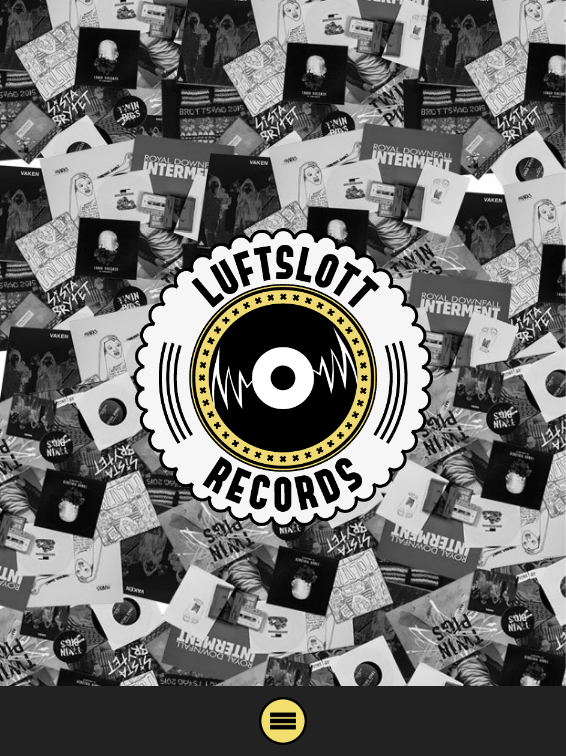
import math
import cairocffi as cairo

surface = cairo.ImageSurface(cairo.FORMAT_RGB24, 566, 756)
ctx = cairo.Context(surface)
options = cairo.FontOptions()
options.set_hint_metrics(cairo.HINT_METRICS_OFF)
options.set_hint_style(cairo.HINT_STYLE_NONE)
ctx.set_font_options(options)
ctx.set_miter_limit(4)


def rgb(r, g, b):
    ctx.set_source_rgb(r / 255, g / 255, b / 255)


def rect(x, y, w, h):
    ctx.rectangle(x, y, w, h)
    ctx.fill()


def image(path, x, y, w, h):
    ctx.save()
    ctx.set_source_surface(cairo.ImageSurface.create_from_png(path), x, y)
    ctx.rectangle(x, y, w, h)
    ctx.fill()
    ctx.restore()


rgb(255, 255, 255)
ctx.paint()
image('image0.png', 0, 0, 566, 686)
image('image1.png', 133, 228, 300, 300)
rgb(34, 34, 34)
rect(0, 686, 566, 70)
image('image2.png', 259, 697, 48, 48)
surface.write_to_png('render.png')
